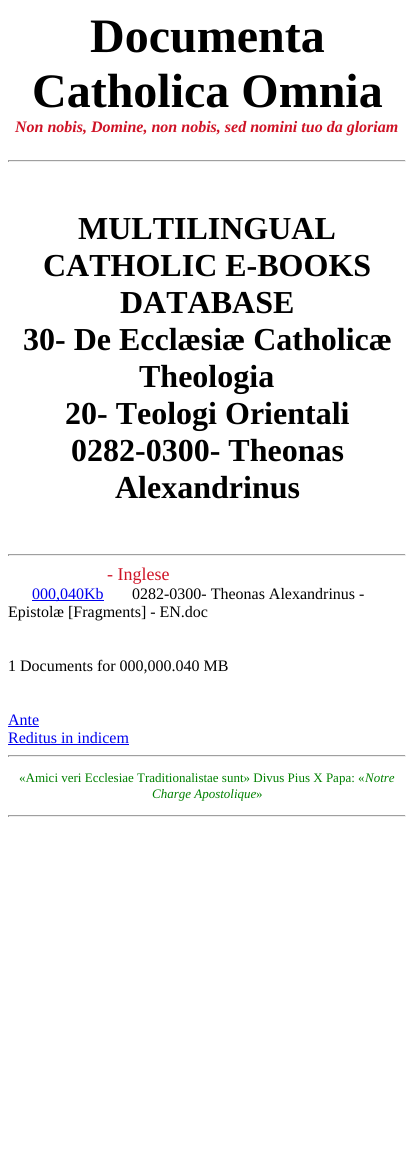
import math
import cairocffi as cairo

surface = cairo.ImageSurface(cairo.FORMAT_RGB24, 414, 1174)
ctx = cairo.Context(surface)
options = cairo.FontOptions()
options.set_hint_metrics(cairo.HINT_METRICS_OFF)
options.set_hint_style(cairo.HINT_STYLE_NONE)
ctx.set_font_options(options)
ctx.set_miter_limit(4)


def rgb(r, g, b):
    ctx.set_source_rgb(r / 255, g / 255, b / 255)


def face(family, size, italic, bold):
    ctx.select_font_face(family, cairo.FONT_SLANT_ITALIC if italic else cairo.FONT_SLANT_NORMAL, cairo.FONT_WEIGHT_BOLD if bold else cairo.FONT_WEIGHT_NORMAL)
    ctx.set_font_size(size)


def label(x, y, s):
    ctx.move_to(x, y)
    ctx.show_text(s)


def rect(x, y, w, h):
    ctx.rectangle(x, y, w, h)
    ctx.fill()


rgb(255, 255, 255)
ctx.paint()
face('Liberation Serif', 48, 0, 1)
rgb(0, 0, 0)
label(90, 52, 'Documenta')
label(32, 107, 'Catholica Omnia')
face('Liberation Serif', 16, 1, 1)
rgb(207, 19, 38)
label(15, 132, 'Non nobis, Domine, non nobis, sed nomini tuo da gloriam')
rgb(159, 159, 159)
rect(8, 160, 398, 1)
rgb(238, 238, 238)
rect(405, 160, 1, 2)
rect(8, 161, 398, 1)
rgb(159, 159, 159)
rect(8, 160, 1, 2)
face('Liberation Serif', 32, 0, 1)
rgb(0, 0, 0)
label(78, 239, 'MULTILINGUAL')
label(43, 276, 'CATHOLIC E-BOOKS')
label(120, 313, 'DATABASE')
label(23, 350, '30- De Ecclæsiæ Catholicæ')
label(139, 387, 'Theologia')
label(65, 424, '20- Teologi Orientali')
label(71, 461, '0282-0300- Theonas')
label(115, 498, 'Alexandrinus')
rgb(159, 159, 159)
rect(8, 554, 398, 1)
rgb(238, 238, 238)
rect(405, 554, 1, 2)
rect(8, 555, 398, 1)
rgb(159, 159, 159)
rect(8, 554, 1, 2)
face('Liberation Serif', 18, 0, 0)
rgb(207, 19, 38)
label(107, 580, '- Inglese')
rgb(0, 0, 238)
rect(32, 600, 72, 1)
face('Liberation Serif', 16, 0, 0)
label(32, 599, '000,040Kb')
rgb(0, 0, 0)
label(132, 599, '0282-0300- Theonas Alexandrinus -')
label(8, 617, 'Epistolæ [Fragments] - EN.doc')
label(8, 671, '1 Documents for 000,000.040 MB')
rgb(0, 0, 238)
label(8, 725, 'Ante')
rect(8, 726, 31, 1)
label(8, 743, 'Reditus in indicem')
rect(8, 744, 121, 1)
rgb(159, 159, 159)
rect(8, 755, 398, 1)
rgb(238, 238, 238)
rect(405, 755, 1, 2)
rect(8, 756, 398, 1)
rgb(159, 159, 159)
rect(8, 755, 1, 2)
face('Liberation Serif', 13, 0, 0)
rgb(0, 128, 0)
label(19, 782, '«Amici veri Ecclesiae Traditionalistae sunt» Divus Pius X Papa: «')
face('Liberation Serif', 13, 1, 0)
label(365, 782, 'Notre')
label(152, 798, 'Charge Apostolique')
face('Liberation Serif', 13, 0, 0)
label(256, 798, '»')
rgb(159, 159, 159)
rect(8, 815, 398, 1)
rgb(238, 238, 238)
rect(405, 815, 1, 2)
rect(8, 816, 398, 1)
rgb(159, 159, 159)
rect(8, 815, 1, 2)
surface.write_to_png('render.png')
